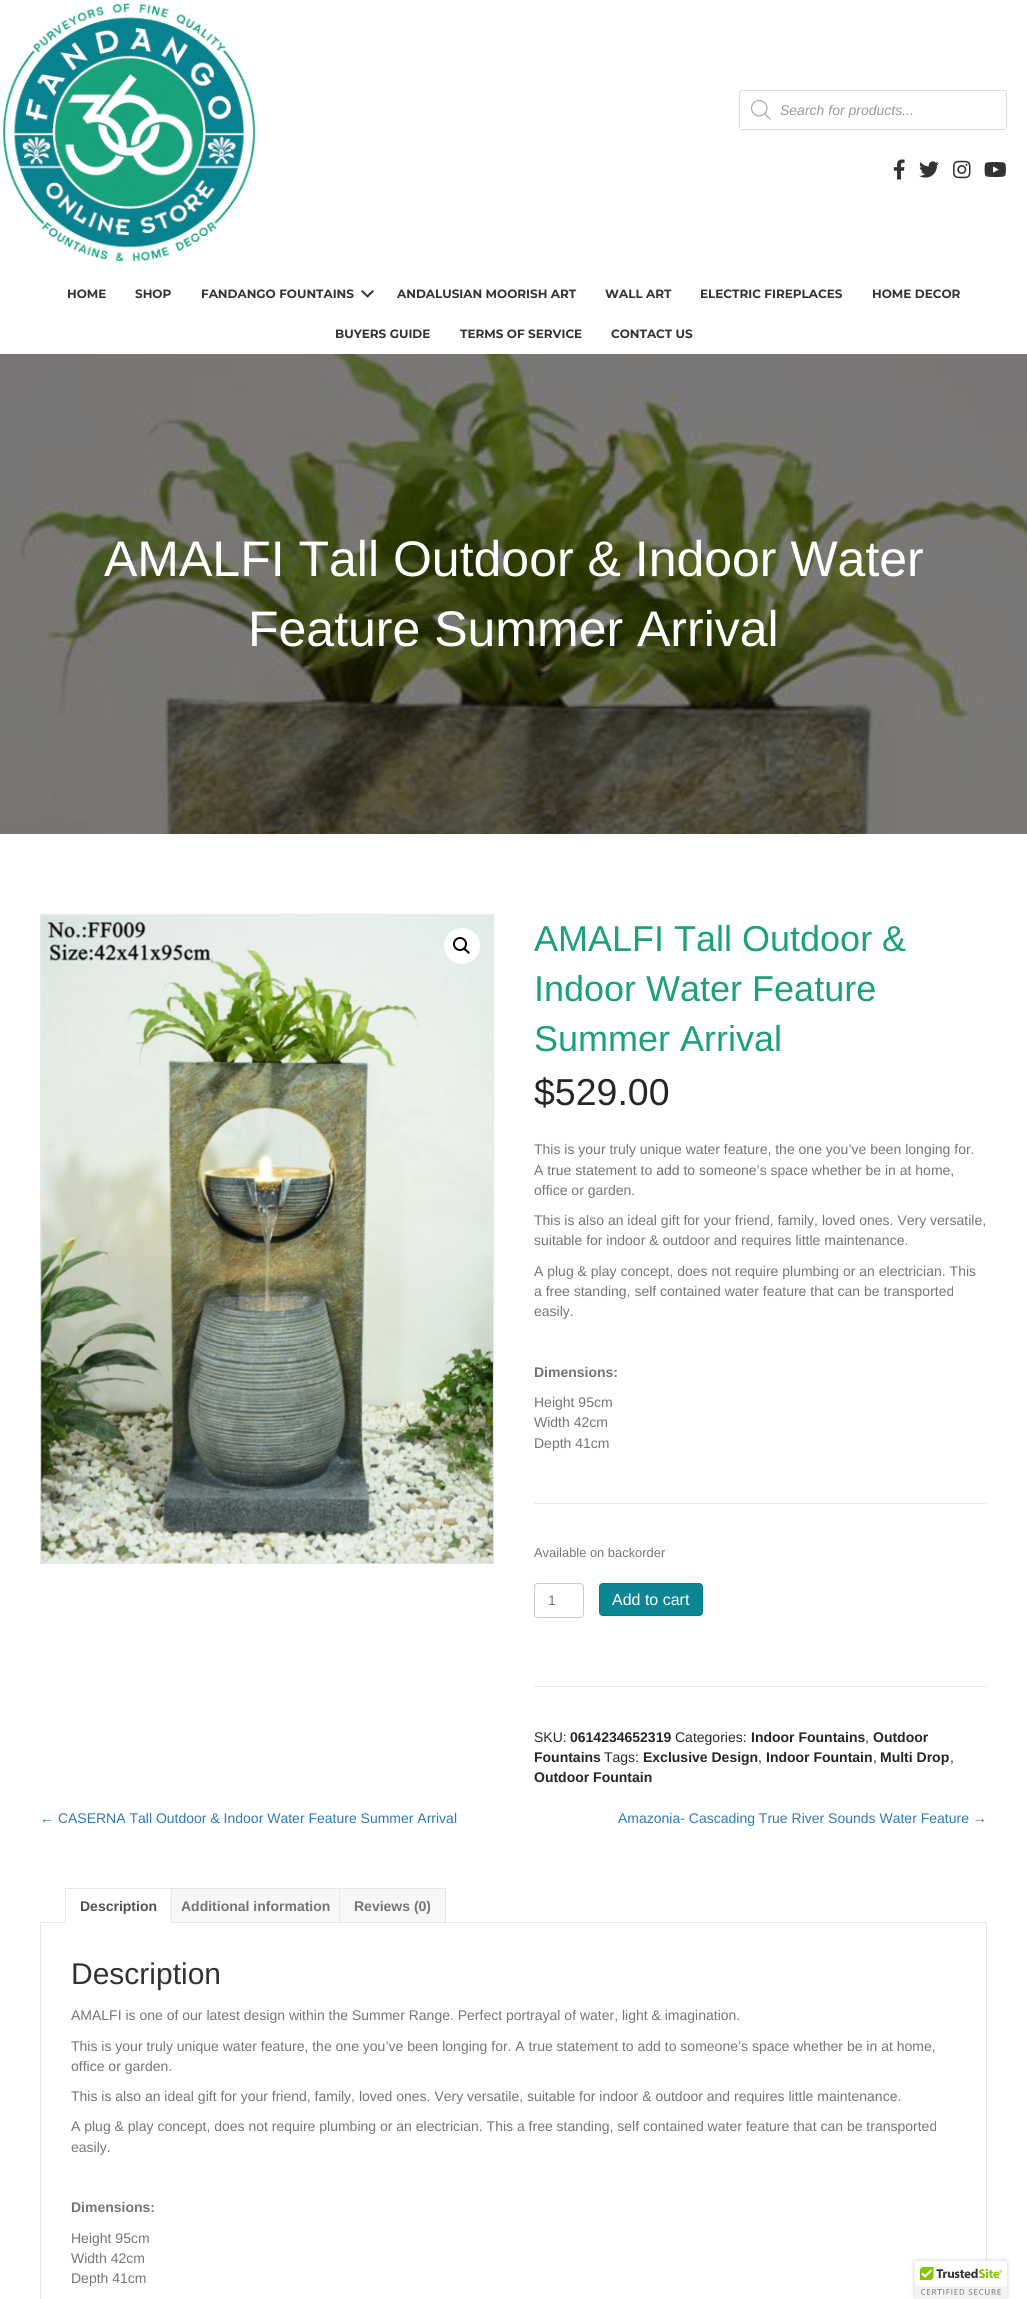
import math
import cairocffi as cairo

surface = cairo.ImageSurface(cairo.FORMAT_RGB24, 1027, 2299)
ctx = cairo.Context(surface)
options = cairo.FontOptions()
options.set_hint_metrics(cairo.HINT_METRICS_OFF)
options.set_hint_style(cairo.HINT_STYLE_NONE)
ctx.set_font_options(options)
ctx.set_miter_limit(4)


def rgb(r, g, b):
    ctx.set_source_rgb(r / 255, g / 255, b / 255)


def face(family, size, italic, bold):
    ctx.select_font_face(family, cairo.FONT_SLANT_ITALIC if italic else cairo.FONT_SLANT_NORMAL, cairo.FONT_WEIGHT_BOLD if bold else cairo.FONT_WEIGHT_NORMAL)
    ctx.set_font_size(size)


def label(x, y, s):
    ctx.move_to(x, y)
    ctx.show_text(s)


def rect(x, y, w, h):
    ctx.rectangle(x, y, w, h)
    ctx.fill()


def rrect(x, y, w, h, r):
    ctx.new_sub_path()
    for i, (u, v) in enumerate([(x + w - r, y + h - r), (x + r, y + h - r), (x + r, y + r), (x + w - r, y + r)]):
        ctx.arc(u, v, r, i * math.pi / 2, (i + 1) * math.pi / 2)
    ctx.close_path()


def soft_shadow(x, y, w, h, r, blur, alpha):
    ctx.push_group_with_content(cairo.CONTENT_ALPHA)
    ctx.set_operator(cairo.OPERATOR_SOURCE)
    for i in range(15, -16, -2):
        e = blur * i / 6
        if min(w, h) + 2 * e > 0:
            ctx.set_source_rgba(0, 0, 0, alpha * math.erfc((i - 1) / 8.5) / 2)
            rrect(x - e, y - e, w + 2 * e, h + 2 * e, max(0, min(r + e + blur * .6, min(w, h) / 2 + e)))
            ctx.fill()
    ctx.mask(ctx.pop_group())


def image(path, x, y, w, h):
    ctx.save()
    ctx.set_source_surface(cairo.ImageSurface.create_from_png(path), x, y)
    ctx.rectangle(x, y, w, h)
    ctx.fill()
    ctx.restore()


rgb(255, 255, 255)
ctx.paint()
image('image0.png', 2, 3, 254, 258)
rrect(739.5, 90.5, 267, 39, 2.5)
rgb(221, 221, 221)
ctx.set_line_width(1)
ctx.stroke()
image('image1.png', 751, 100, 20, 20)
face('Liberation Sans', 14, 1, 0)
rgb(153, 153, 153)
label(780, 115, 'Search for products...')
image('image2.png', 893, 159, 12, 21)
image('image3.png', 919, 161, 20, 17)
image('image4.png', 953, 160, 18, 19)
image('image5.png', 984, 162, 22, 15)
face('Montserrat Thin', 12, 0, 0)
rgb(51, 51, 51)
label(67, 298, 'HOME')
label(135, 298, 'SHOP')
label(201, 298, 'FANDANGO FOUNTAINS')
ctx.new_path()
ctx.move_to(372.5, 290)
ctx.line_to(374, 291.5)
ctx.line_to(367.5, 297.5)
ctx.line_to(366, 296.5)
ctx.close_path()
ctx.fill()
ctx.new_path()
ctx.move_to(362.5, 290)
ctx.line_to(369, 296.5)
ctx.line_to(367.5, 297.5)
ctx.line_to(361, 291.5)
ctx.close_path()
ctx.fill()
label(397, 298, 'ANDALUSIAN MOORISH ART')
label(605, 298, 'WALL ART')
label(700, 298, 'ELECTRIC FIREPLACES')
label(872, 298, 'HOME DECOR')
label(335, 338, 'BUYERS GUIDE')
label(460, 338, 'TERMS OF SERVICE')
label(611, 338, 'CONTACT US')
image('image6.png', 0, 354, 1027, 480)
face('Liberation Sans', 50, 0, 0)
rgb(255, 255, 255)
label(104, 576, 'AMALFI Tall Outdoor & Indoor Water')
label(248, 646, 'Feature Summer Arrival')
ctx.rectangle(40.5, 914.5, 453, 649)
rgb(230, 230, 230)
ctx.stroke()
image('image7.png', 40, 915, 453, 649)
rgb(255, 255, 255)
ctx.arc(462, 946, 18, 0, 2 * math.pi)
ctx.fill()
ctx.arc(460, 944, 6, 0, 2 * math.pi)
rgb(0, 0, 0)
ctx.set_line_width(2)
ctx.stroke()
ctx.new_path()
ctx.move_to(463.5, 948)
ctx.curve_to(465, 946.5, 466.5, 949.5, 467, 950)
ctx.curve_to(468, 950.5, 470.5, 952.5, 469.5, 953.5)
ctx.curve_to(468, 954.5, 466.5, 952, 466, 951.5)
ctx.curve_to(465, 951, 462.5, 949, 463.5, 948)
ctx.close_path()
ctx.fill()
face('Liberation Sans', 36, 0, 0)
rgb(28, 161, 124)
label(534, 951, 'AMALFI Tall Outdoor &')
label(534, 1001, 'Indoor Water Feature')
label(534, 1051, 'Summer Arrival')
face('Liberation Sans', 37.5, 0, 0)
rgb(38, 38, 38)
label(534, 1105, '$529.00')
face('Liberation Sans', 14, 0, 0)
rgb(117, 117, 117)
label(534, 1154, 'This is your truly unique water feature, the one you’ve been longing for.')
label(534, 1175, 'A true statement to add to someone’s space whether be in at home,')
label(534, 1195, 'office or garden.')
label(534, 1225, 'This is also an ideal gift for your friend, family, loved ones. Very versatile,')
label(534, 1245, 'suitable for indoor & outdoor and requires little maintenance.')
label(534, 1276, 'A plug & play concept, does not require plumbing or an electrician. This')
label(534, 1296, 'a free standing, self contained water feature that can be transported')
label(534, 1316, 'easily.')
face('Liberation Sans', 14, 0, 1)
label(534, 1377, 'Dimensions:')
face('Liberation Sans', 14, 0, 0)
label(534, 1407, 'Height 95cm')
label(534, 1427, 'Width 42cm')
label(534, 1448, 'Depth 41cm')
rgb(232, 232, 232)
rect(534, 1503, 453, 1)
face('Liberation Sans', 12.9, 0, 0)
rgb(117, 117, 117)
label(534, 1557, 'Available on backorder')
rrect(534.5, 1583.5, 49, 34, 3.5)
rgb(204, 204, 204)
ctx.set_line_width(1)
ctx.stroke()
face('Liberation Sans', 14, 0, 0)
rgb(117, 117, 117)
label(548, 1605, '1')
rgb(13, 134, 147)
rrect(599.5, 1583.5, 103, 32, 3.5)
ctx.fill_preserve()
rgb(1, 122, 135)
ctx.stroke()
face('Liberation Sans', 16, 0, 0)
rgb(255, 255, 255)
label(612, 1605, 'Add to cart')
rgb(232, 232, 232)
rect(534, 1686, 453, 1)
face('Liberation Sans', 14, 0, 0)
rgb(38, 38, 38)
label(534, 1742, 'SKU:')
face('Liberation Sans', 14, 0, 1)
label(570, 1742, '0614234652319')
face('Liberation Sans', 14, 0, 0)
label(675, 1742, 'Categories:')
face('Liberation Sans', 14, 0, 1)
label(751, 1742, 'Indoor Fountains')
face('Liberation Sans', 14, 0, 0)
label(865, 1742, ',')
face('Liberation Sans', 14, 0, 1)
label(873, 1742, 'Outdoor')
label(534, 1762, 'Fountains')
face('Liberation Sans', 14, 0, 0)
label(604, 1762, 'Tags:')
face('Liberation Sans', 14, 0, 1)
label(643, 1762, 'Exclusive Design')
face('Liberation Sans', 14, 0, 0)
label(758, 1762, ',')
face('Liberation Sans', 14, 0, 1)
label(766, 1762, 'Indoor Fountain')
face('Liberation Sans', 14, 0, 0)
label(873, 1762, ',')
face('Liberation Sans', 14, 0, 1)
label(880, 1762, 'Multi Drop')
face('Liberation Sans', 14, 0, 0)
label(950, 1762, ',')
face('Liberation Sans', 14, 0, 1)
label(534, 1782, 'Outdoor Fountain')
face('Liberation Sans', 14, 0, 0)
rgb(43, 123, 185)
label(40, 1823, '← CASERNA Tall Outdoor & Indoor Water Feature Summer Arrival')
label(618, 1823, 'Amazonia- Cascading True River Sounds Water Feature →')
rgb(230, 230, 230)
rect(65, 1888, 381, 1)
rect(445, 1888, 1, 35)
rect(339, 1888, 1, 35)
rect(40, 1922, 947, 1)
rgb(255, 255, 255)
rect(66, 1922, 105, 1)
rgb(230, 230, 230)
rect(171, 1888, 1, 35)
rect(65, 1888, 1, 35)
face('Liberation Sans', 14, 0, 1)
rgb(81, 81, 81)
label(80, 1911, 'Description')
rgb(247, 247, 247)
rect(172, 1889, 167, 33)
rgb(117, 117, 117)
label(181, 1911, 'Additional information')
rgb(247, 247, 247)
rect(340, 1889, 105, 33)
rgb(117, 117, 117)
label(354, 1911, 'Reviews (0)')
rgb(230, 230, 230)
rect(986, 1923, 1, 338)
rect(40, 1923, 1, 376)
face('Liberation Sans', 30, 0, 0)
rgb(51, 51, 51)
label(71, 1984, 'Description')
face('Liberation Sans', 14, 0, 0)
rgb(117, 117, 117)
label(71, 2020, 'AMALFI is one of our latest design within the Summer Range. Perfect portrayal of water, light & imagination.')
label(71, 2051, 'This is your truly unique water feature, the one you’ve been longing for. A true statement to add to someone’s space whether be in at home,')
label(71, 2071, 'office or garden.')
label(71, 2101, 'This is also an ideal gift for your friend, family, loved ones. Very versatile, suitable for indoor & outdoor and requires little maintenance.')
label(71, 2131, 'A plug & play concept, does not require plumbing or an electrician. This a free standing, self contained water feature that can be transported')
label(71, 2152, 'easily.')
face('Liberation Sans', 14, 0, 1)
label(71, 2212, 'Dimensions:')
face('Liberation Sans', 14, 0, 0)
label(71, 2243, 'Height 95cm')
label(71, 2263, 'Width 42cm')
label(71, 2283, 'Depth 41cm')
rgb(0, 0, 0)
soft_shadow(915, 2261, 92, 38, 2, 2.5, 0.2)
rgb(255, 255, 255)
ctx.new_path()
ctx.move_to(917, 2261)
ctx.line_to(1005, 2261)
ctx.curve_to(1006, 2261, 1007, 2262, 1007, 2263)
ctx.line_to(1007, 2299)
ctx.line_to(915, 2299)
ctx.line_to(915, 2263)
ctx.curve_to(915, 2262, 916, 2261, 917, 2261)
ctx.close_path()
ctx.fill()
image('image8.png', 915, 2267, 92, 32)
surface.write_to_png('render.png')
